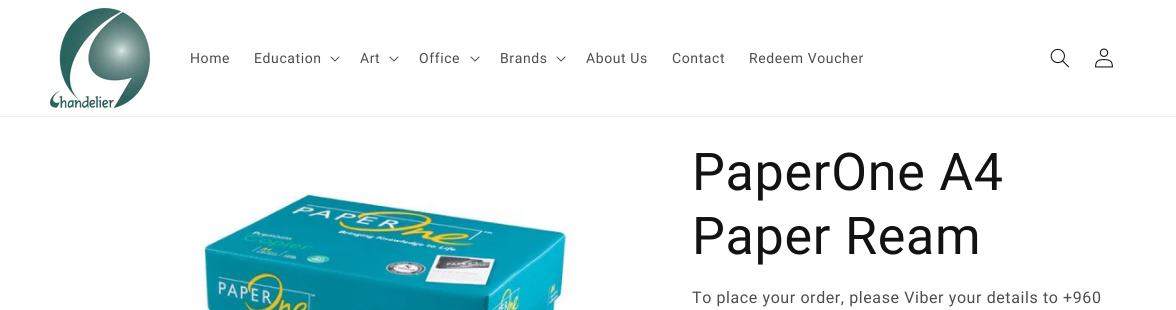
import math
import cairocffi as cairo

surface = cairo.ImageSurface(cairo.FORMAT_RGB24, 1176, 310)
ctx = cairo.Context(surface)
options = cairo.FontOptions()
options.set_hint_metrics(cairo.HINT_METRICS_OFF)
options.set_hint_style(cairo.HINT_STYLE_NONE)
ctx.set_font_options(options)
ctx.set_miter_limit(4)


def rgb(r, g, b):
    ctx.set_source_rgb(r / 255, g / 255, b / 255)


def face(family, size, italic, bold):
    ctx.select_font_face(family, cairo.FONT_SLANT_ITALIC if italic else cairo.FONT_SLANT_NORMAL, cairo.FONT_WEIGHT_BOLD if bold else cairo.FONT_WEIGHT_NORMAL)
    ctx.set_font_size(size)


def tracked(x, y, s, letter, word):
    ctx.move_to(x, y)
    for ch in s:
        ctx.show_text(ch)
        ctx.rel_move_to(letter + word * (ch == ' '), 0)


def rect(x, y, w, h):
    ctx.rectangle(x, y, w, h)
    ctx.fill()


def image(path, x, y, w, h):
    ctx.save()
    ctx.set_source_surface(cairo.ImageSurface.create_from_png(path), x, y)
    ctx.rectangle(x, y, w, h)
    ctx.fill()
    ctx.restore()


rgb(255, 255, 255)
ctx.paint()
rgb(236, 236, 236)
rect(0, 116, 1176, 1)
image('image0.png', 50, 8, 100, 101)
face('Roboto', 14, 0, 0)
rgb(77, 77, 77)
tracked(190, 63, 'Home', 0.6, 0)
tracked(254, 63, 'Education', 0.6, 0)
image('image1.png', 330, 56, 10, 6)
tracked(360, 63, 'Art', 0.6, 0)
image('image1.png', 389, 56, 10, 6)
tracked(419, 63, 'Office', 0.6, 0)
image('image1.png', 470, 56, 10, 6)
tracked(500, 63, 'Brands', 0.6, 0)
image('image1.png', 556, 56, 10, 6)
tracked(586, 63, 'About Us', 0.6, 0)
tracked(672, 63, 'Contact', 0.6, 0)
tracked(749, 63, 'Redeem Voucher', 0.6, 0)
image('image2.png', 1050, 48, 19, 20)
image('image3.png', 1095, 48, 18, 20)
image('image4.png', 201, 191, 372, 119)
face('Roboto', 52, 0, 0)
rgb(18, 18, 18)
tracked(692, 190, 'PaperOne A4', 0.75, 0)
tracked(692, 254, 'Paper Ream', 0.75, 0)
face('Roboto', 16, 0, 0)
rgb(77, 77, 77)
tracked(692, 303, 'To place your order, please Viber your details to +960', 0.6, 0)
surface.write_to_png('render.png')
